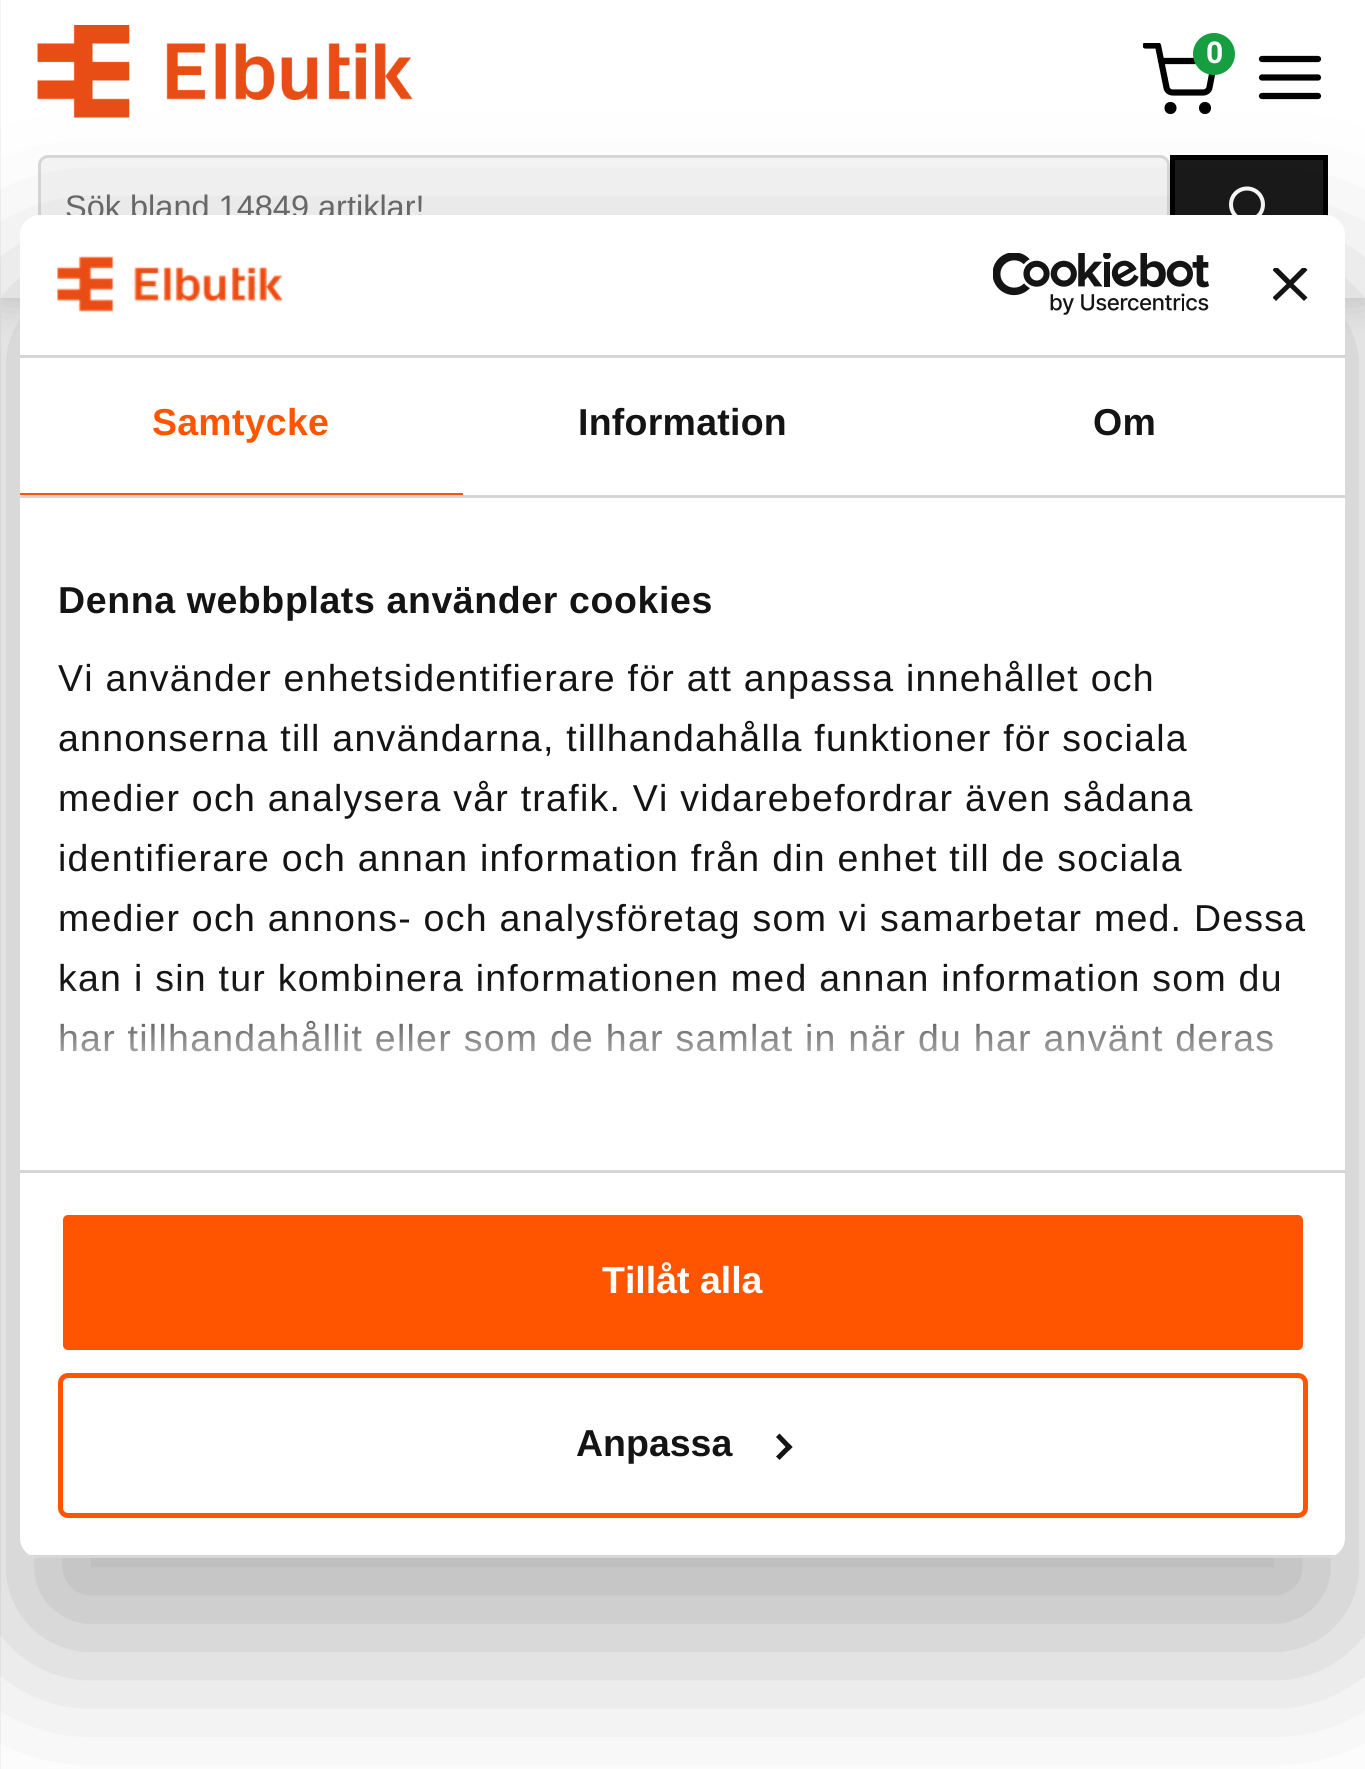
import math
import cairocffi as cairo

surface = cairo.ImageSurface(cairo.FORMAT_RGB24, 1365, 1769)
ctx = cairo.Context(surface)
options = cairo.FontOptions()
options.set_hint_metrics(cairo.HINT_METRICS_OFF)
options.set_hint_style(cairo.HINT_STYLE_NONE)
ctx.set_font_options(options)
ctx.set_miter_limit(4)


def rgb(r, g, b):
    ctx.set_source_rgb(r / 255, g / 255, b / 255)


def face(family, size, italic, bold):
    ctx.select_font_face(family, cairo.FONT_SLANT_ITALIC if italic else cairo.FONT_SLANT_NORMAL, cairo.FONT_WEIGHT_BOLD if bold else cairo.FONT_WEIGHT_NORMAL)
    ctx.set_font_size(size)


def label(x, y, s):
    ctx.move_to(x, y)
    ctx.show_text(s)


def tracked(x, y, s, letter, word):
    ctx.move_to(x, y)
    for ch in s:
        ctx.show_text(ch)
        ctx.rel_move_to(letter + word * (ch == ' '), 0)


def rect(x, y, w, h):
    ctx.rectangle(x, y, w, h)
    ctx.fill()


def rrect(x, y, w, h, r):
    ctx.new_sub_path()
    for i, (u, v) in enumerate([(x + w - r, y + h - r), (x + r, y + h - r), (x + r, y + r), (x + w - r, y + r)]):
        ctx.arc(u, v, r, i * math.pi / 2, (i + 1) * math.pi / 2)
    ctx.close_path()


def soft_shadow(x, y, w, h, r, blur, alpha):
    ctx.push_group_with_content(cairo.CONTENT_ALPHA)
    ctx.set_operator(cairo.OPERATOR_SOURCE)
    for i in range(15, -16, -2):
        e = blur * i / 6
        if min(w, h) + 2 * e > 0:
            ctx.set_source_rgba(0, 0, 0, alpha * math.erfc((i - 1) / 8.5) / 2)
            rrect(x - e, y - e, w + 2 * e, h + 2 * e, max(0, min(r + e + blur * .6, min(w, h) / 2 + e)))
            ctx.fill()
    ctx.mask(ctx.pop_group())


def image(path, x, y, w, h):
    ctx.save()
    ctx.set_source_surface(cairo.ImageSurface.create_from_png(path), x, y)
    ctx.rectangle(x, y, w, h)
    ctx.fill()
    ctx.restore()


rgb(255, 255, 255)
ctx.paint()
rgb(0, 0, 0)
soft_shadow(0, 0, 1365, 298, 0, 19, 0.1)
rgb(255, 255, 255)
rect(1, 118, 1364, 180)
ctx.save()
ctx.set_fill_rule(cairo.FILL_RULE_EVEN_ODD)
ctx.new_path()
ctx.move_to(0, 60)
ctx.line_to(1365, 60)
ctx.line_to(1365, 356)
ctx.line_to(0, 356)
ctx.close_path()
ctx.move_to(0, 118)
ctx.line_to(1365, 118)
ctx.line_to(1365, 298)
ctx.line_to(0, 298)
ctx.close_path()
ctx.clip()
rgb(0, 0, 0)
soft_shadow(0, 118, 1365, 180, 0, 19, 0.1)
ctx.restore()
rect(1, 0, 1364, 118)
image('image0.png', 37, 25, 376, 93)
rgb(243, 243, 243)
rect(0, 0, 1, 1769)
ctx.save()
ctx.rectangle(1143, 43, 75, 75)
ctx.clip()
ctx.new_path()
ctx.move_to(1145.5, 45.5)
ctx.line_to(1158, 45.5)
ctx.line_to(1166.5, 87.5)
ctx.curve_to(1167, 90.5, 1169.5, 92.5, 1173, 92.5)
ctx.line_to(1203, 92.5)
ctx.curve_to(1206, 92.5, 1209, 90.5, 1209.5, 87.5)
ctx.line_to(1214.5, 61)
ctx.line_to(1161, 61)
rgb(0, 0, 0)
ctx.set_line_width(6.2)
ctx.set_line_cap(cairo.LINE_CAP_ROUND)
ctx.set_line_join(cairo.LINE_JOIN_ROUND)
ctx.stroke()
ctx.restore()
rgb(23, 158, 64)
ctx.arc(1214, 54, 21, 0, 2 * math.pi)
ctx.fill()
face('Roboto', 30, 0, 1)
rgb(255, 255, 255)
label(1206, 63, '0')
ctx.new_path()
ctx.arc(1170.5, 108, 3, 0, 2 * math.pi)
rgb(0, 0, 0)
ctx.set_line_width(6.2)
ctx.stroke()
ctx.arc(1205, 108, 3, 0, 2 * math.pi)
ctx.stroke()
ctx.new_path()
ctx.move_to(1262, 59)
ctx.line_to(1318, 59)
ctx.set_line_cap(cairo.LINE_CAP_ROUND)
ctx.set_line_join(cairo.LINE_JOIN_ROUND)
ctx.stroke()
ctx.new_path()
ctx.move_to(1262, 77.5)
ctx.line_to(1318, 77.5)
ctx.stroke()
ctx.new_path()
ctx.move_to(1262, 96)
ctx.line_to(1318, 96)
ctx.stroke()
rgb(246, 246, 246)
rrect(39.5, 156.5, 1129, 102, 8.5)
ctx.fill_preserve()
rgb(217, 217, 217)
ctx.set_line_width(3)
ctx.set_line_cap(cairo.LINE_CAP_BUTT)
ctx.set_line_join(cairo.LINE_JOIN_MITER)
ctx.stroke()
face('Liberation Sans', 32.5, 0, 0)
rgb(108, 108, 108)
label(65, 218, 'Sök bland 14849 artiklar!')
rgb(26, 26, 26)
rect(1175, 160, 148, 55)
ctx.rectangle(1172.5, 157.5, 153, 100)
rgb(0, 0, 0)
ctx.set_line_width(5)
ctx.stroke()
image('image1.png', 1229, 186, 36, 29)
rgb(0, 0, 0)
soft_shadow(20, 295, 1325, 1343, 20, 85, 0.3)
rgb(255, 255, 255)
rrect(20, 215, 1325, 1343, 20)
ctx.fill()
rgb(214, 214, 214)
rect(20, 355, 1325, 3)
image('image2.png', 57, 256, 226, 56)
image('image3.png', 993, 253, 216, 62)
ctx.save()
ctx.rectangle(1273, 268, 35, 35)
ctx.clip()
rgb(20, 20, 20)
ctx.new_path()
ctx.move_to(1307.5, 270)
ctx.line_to(1304, 266)
ctx.line_to(1290, 280)
ctx.line_to(1276, 266)
ctx.line_to(1272.5, 270)
ctx.line_to(1286.5, 284)
ctx.line_to(1272.5, 297.5)
ctx.line_to(1276, 301)
ctx.line_to(1290, 287.5)
ctx.line_to(1304, 301)
ctx.line_to(1307.5, 297.5)
ctx.line_to(1293.5, 284)
ctx.close_path()
ctx.fill()
ctx.restore()
rect(20, 495, 1325, 3)
rgb(255, 85, 0)
rect(20, 493, 443, 2)
face('Liberation Sans', 37.5, 0, 1)
tracked(152, 435, 'Samtycke', 0.25, 0)
rgb(20, 20, 20)
tracked(578, 435, 'Information', 0.25, 0)
tracked(1093, 435, 'Om', 0.25, 0)
rgb(214, 214, 214)
rect(20, 1170, 1325, 3)
rgb(20, 20, 20)
tracked(58, 613, 'Denna webbplats använder cookies', 0.6, 0)
face('Liberation Sans', 37.5, 0, 0)
tracked(58, 691, 'Vi använder enhetsidentifierare för att anpassa innehållet och', 1.25, 0)
tracked(58, 751, 'annonserna till användarna, tillhandahålla funktioner för sociala', 1.25, 0)
tracked(58, 811, 'medier och analysera vår trafik. Vi vidarebefordrar även sådana', 1.25, 0)
tracked(58, 871, 'identifierare och annan information från din enhet till de sociala', 1.25, 0)
tracked(58, 931, 'medier och annons- och analysföretag som vi samarbetar med. Dessa', 1.25, 0)
tracked(58, 991, 'kan i sin tur kombinera informationen med annan information som du', 1.25, 0)
tracked(58, 1051, 'har tillhandahållit eller som de har samlat in när du har använt deras', 1.25, 0)
gradient = cairo.LinearGradient(666, 1169, 666, 981)
gradient.add_color_stop_rgba(0, 1, 1, 1, 1)
gradient.add_color_stop_rgba(0.5, 1, 1, 1, 0.8)
gradient.add_color_stop_rgba(1, 1, 1, 1, 0)
ctx.set_source(gradient)
rect(60, 984, 1219, 68)
ctx.save()
rrect(20, 215, 1325, 1343, 20)
ctx.clip()
rgb(214, 214, 214)
rect(29, 1555, 1307, 3)
ctx.restore()
rgb(255, 85, 0)
rrect(60.5, 1212.5, 1245, 140, 7.5)
ctx.fill_preserve()
rgb(255, 255, 255)
ctx.stroke()
face('Liberation Sans', 37.5, 0, 1)
label(602, 1293, 'Tillåt alla')
rrect(60.5, 1375.5, 1245, 140, 7.5)
rgb(255, 85, 0)
ctx.stroke()
rgb(20, 20, 20)
label(576, 1456, 'Anpassa')
ctx.new_path()
ctx.move_to(779.5, 1433.5)
ctx.line_to(792.5, 1447)
ctx.line_to(789, 1450.5)
ctx.line_to(776, 1437)
ctx.close_path()
ctx.fill()
ctx.new_path()
ctx.move_to(789, 1443.5)
ctx.line_to(792.5, 1447)
ctx.line_to(779.5, 1460)
ctx.line_to(776, 1456.5)
ctx.close_path()
ctx.fill()
surface.write_to_png('render.png')
